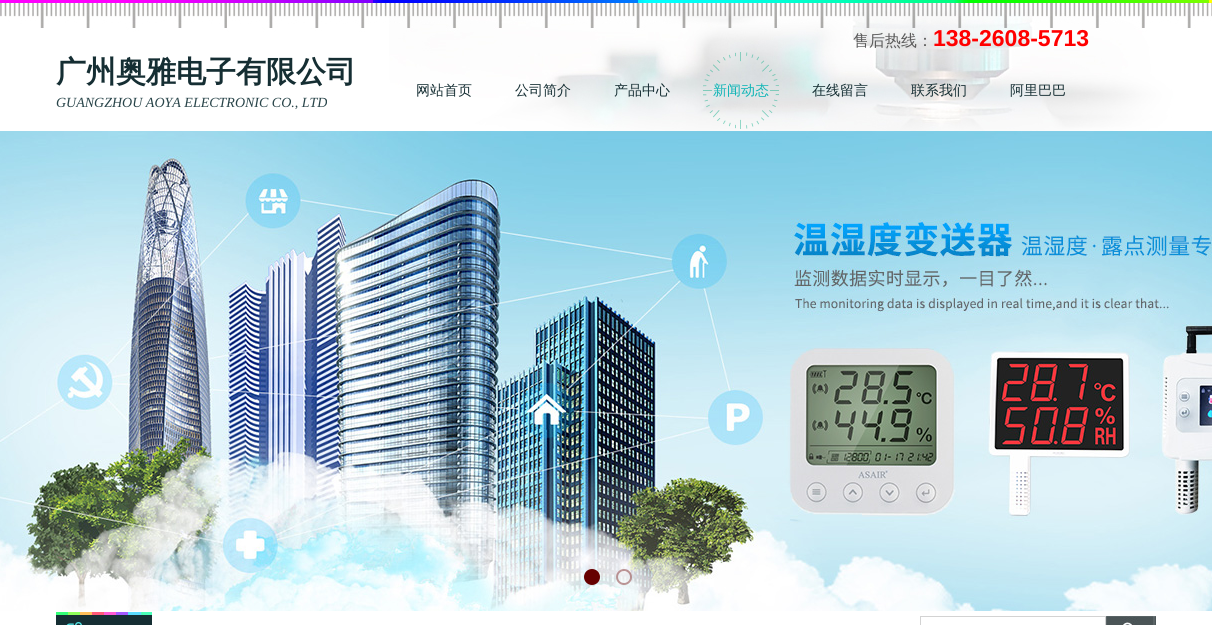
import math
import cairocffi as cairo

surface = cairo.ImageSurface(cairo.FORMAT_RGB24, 1212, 625)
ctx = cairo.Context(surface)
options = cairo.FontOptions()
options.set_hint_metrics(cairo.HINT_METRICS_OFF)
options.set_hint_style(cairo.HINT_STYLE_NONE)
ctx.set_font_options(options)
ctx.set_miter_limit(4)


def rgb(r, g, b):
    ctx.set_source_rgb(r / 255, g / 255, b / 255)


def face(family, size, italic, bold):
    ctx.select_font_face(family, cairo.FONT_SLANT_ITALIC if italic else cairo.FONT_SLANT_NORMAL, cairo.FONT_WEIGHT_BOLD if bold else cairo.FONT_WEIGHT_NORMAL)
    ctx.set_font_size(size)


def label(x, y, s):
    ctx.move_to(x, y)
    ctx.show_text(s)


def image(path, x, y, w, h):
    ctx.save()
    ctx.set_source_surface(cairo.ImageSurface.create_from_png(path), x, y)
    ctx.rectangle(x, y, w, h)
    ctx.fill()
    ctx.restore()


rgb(255, 255, 255)
ctx.paint()
image('image0.png', 0, 0, 1212, 131)
face('WenQuanYi Zen Hei Medium', 16, 0, 0)
rgb(90, 90, 90)
label(853, 46, '售后热线：')
face('Liberation Sans', 23, 0, 1)
rgb(255, 0, 0)
label(933, 46, '138-2608-5713')
face('WenQuanYi Zen Hei', 30, 0, 1)
rgb(21, 46, 51)
label(56, 82, '广州奥雅电子有限公司')
face('Liberation Serif', 14, 1, 0)
rgb(40, 68, 73)
label(56, 107, 'GUANGZHOU AOYA ELECTRONIC CO., LTD')
face('WenQuanYi Zen Hei Medium', 14, 0, 0)
rgb(21, 46, 51)
label(416, 95, '网站首页')
label(515, 95, '公司简介')
label(614, 95, '产品中心')
image('image1.png', 703, 52, 76, 77)
rgb(12, 180, 182)
label(713, 95, '新闻动态')
rgb(21, 46, 51)
label(812, 95, '在线留言')
label(911, 95, '联系我们')
label(1010, 95, '阿里巴巴')
image('image2.png', 0, 131, 1212, 480)
rgb(102, 0, 0)
ctx.arc(592, 577, 7, 0, 2 * math.pi)
ctx.fill_preserve()
ctx.stroke()
ctx.set_source_rgba(1, 1, 1, 0.4)
ctx.arc(624, 577, 8, 0, 2 * math.pi)
ctx.fill()
ctx.arc(624, 577, 7, 0, 2 * math.pi)
ctx.set_source_rgba(0.4, 0, 0, 0.4)
ctx.stroke()
image('image3.png', 56, 612, 96, 13)
ctx.rectangle(920.5, 616.5, 185, 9)
rgb(211, 211, 211)
ctx.set_line_width(1)
ctx.stroke()
image('image4.png', 1106, 616, 50, 9)
image('image5.png', 66, 622, 16, 3)
surface.write_to_png('render.png')
